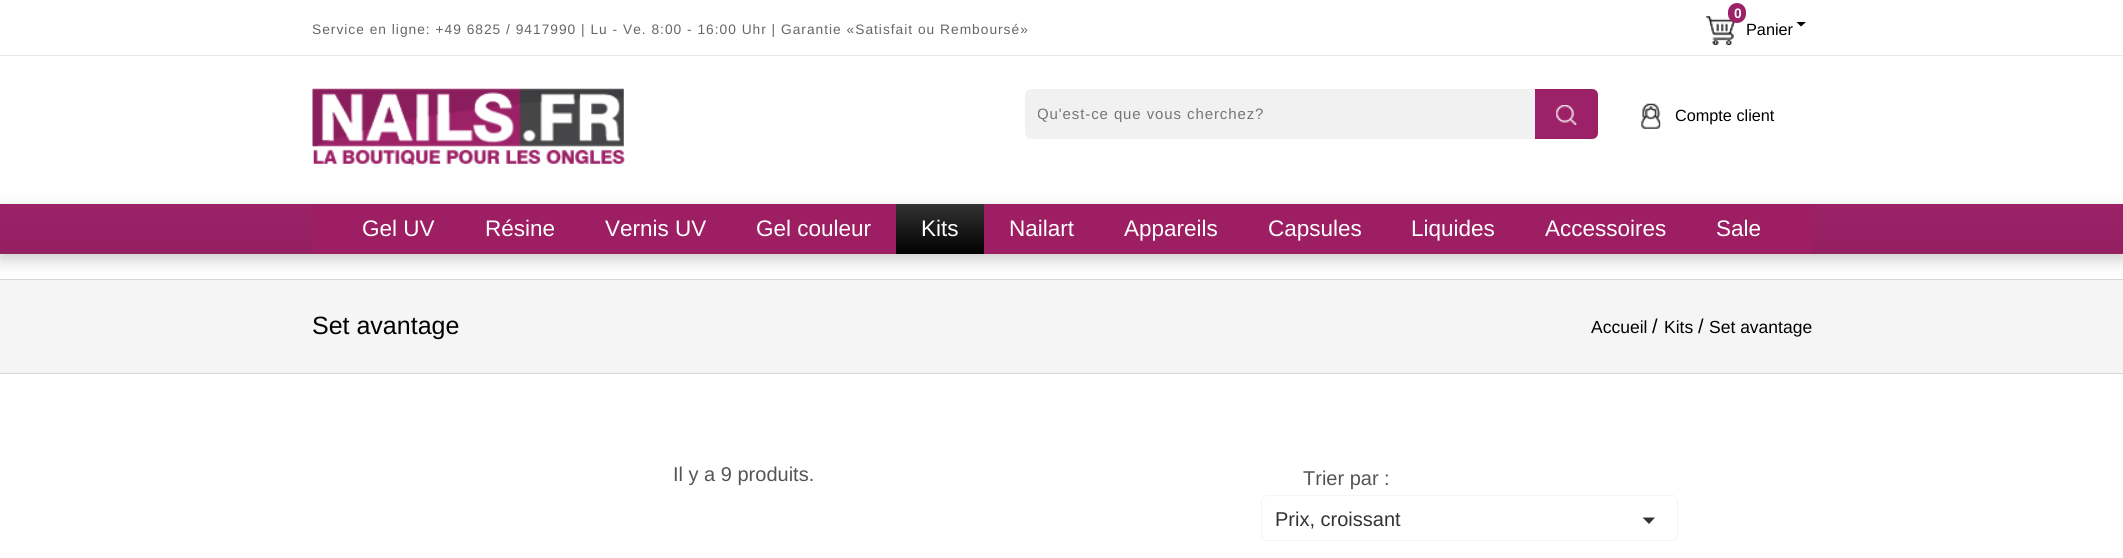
import math
import cairocffi as cairo

surface = cairo.ImageSurface(cairo.FORMAT_RGB24, 2123, 558)
ctx = cairo.Context(surface)
options = cairo.FontOptions()
options.set_hint_metrics(cairo.HINT_METRICS_OFF)
options.set_hint_style(cairo.HINT_STYLE_NONE)
ctx.set_font_options(options)
ctx.set_miter_limit(4)


def rgb(r, g, b):
    ctx.set_source_rgb(r / 255, g / 255, b / 255)


def face(family, size, italic, bold):
    ctx.select_font_face(family, cairo.FONT_SLANT_ITALIC if italic else cairo.FONT_SLANT_NORMAL, cairo.FONT_WEIGHT_BOLD if bold else cairo.FONT_WEIGHT_NORMAL)
    ctx.set_font_size(size)


def label(x, y, s):
    ctx.move_to(x, y)
    ctx.show_text(s)


def tracked(x, y, s, letter, word):
    ctx.move_to(x, y)
    for ch in s:
        ctx.show_text(ch)
        ctx.rel_move_to(letter + word * (ch == ' '), 0)


def rect(x, y, w, h):
    ctx.rectangle(x, y, w, h)
    ctx.fill()


def rrect(x, y, w, h, r):
    ctx.new_sub_path()
    for i, (u, v) in enumerate([(x + w - r, y + h - r), (x + r, y + h - r), (x + r, y + r), (x + w - r, y + r)]):
        ctx.arc(u, v, r, i * math.pi / 2, (i + 1) * math.pi / 2)
    ctx.close_path()


def soft_shadow(x, y, w, h, r, blur, alpha):
    ctx.push_group_with_content(cairo.CONTENT_ALPHA)
    ctx.set_operator(cairo.OPERATOR_SOURCE)
    for i in range(15, -16, -2):
        e = blur * i / 6
        if min(w, h) + 2 * e > 0:
            ctx.set_source_rgba(0, 0, 0, alpha * math.erfc((i - 1) / 8.5) / 2)
            rrect(x - e, y - e, w + 2 * e, h + 2 * e, max(0, min(r + e + blur * .6, min(w, h) / 2 + e)))
            ctx.fill()
    ctx.mask(ctx.pop_group())


def image(path, x, y, w, h):
    ctx.save()
    ctx.set_source_surface(cairo.ImageSurface.create_from_png(path), x, y)
    ctx.rectangle(x, y, w, h)
    ctx.fill()
    ctx.restore()


rgb(255, 255, 255)
ctx.paint()
rgb(232, 232, 232)
rect(0, 55, 2123, 1)
face('Liberation Sans', 13.75, 0, 0)
rgb(102, 102, 102)
tracked(312, 34, 'Service en ligne: +49 6825 / 9417990 | Lu - Ve. 8:00 - 16:00 Uhr | Garantie «Satisfait ou Remboursé»', 1, 0)
image('image0.png', 1706, 16, 29, 29)
rgb(156, 33, 103)
rrect(1728, 3, 18, 20, 9)
ctx.fill()
face('Liberation Sans', 13.75, 0, 1)
rgb(255, 255, 255)
label(1734, 18, '0')
face('Liberation Sans', 16.25, 0, 0)
rgb(0, 0, 0)
label(1746, 35, 'Panier')
ctx.new_path()
ctx.move_to(1796.5, 22)
ctx.line_to(1806, 22)
ctx.line_to(1801, 26.5)
ctx.close_path()
ctx.fill()
image('image1.png', 312, 88, 313, 78)
rgb(241, 241, 241)
rrect(1025, 89, 573, 50, 6)
ctx.fill()
ctx.save()
ctx.rectangle(1038, 105, 547, 18)
ctx.clip()
face('Liberation Sans', 15, 0, 0)
rgb(117, 117, 117)
tracked(1037, 119, 'Qu\'est-ce que vous cherchez?', 0.9, 0)
ctx.restore()
rgb(156, 33, 103)
ctx.new_path()
ctx.move_to(1535, 89)
ctx.line_to(1592, 89)
ctx.curve_to(1595.5, 89, 1598, 91.5, 1598, 95)
ctx.line_to(1598, 133)
ctx.curve_to(1598, 136.5, 1595.5, 139, 1592, 139)
ctx.line_to(1535, 139)
ctx.close_path()
ctx.fill()
image('image2.png', 1556, 105, 21, 20)
image('image3.png', 1641, 103, 20, 26)
rgb(0, 0, 0)
label(1675, 121, 'Compte client')
rgb(245, 245, 245)
rect(0, 280, 2123, 93)
rgb(214, 214, 214)
rect(0, 279, 2123, 1)
rgb(0, 0, 0)
soft_shadow(0, 210, 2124, 50, 0, 8, 0.2)
gradient = cairo.LinearGradient(1062, 204, 1062, 254)
gradient.add_color_stop_rgba(0, 0.612, 0.129, 0.404, 1)
gradient.add_color_stop_rgba(1, 0.576, 0.125, 0.38, 1)
ctx.set_source(gradient)
rect(0, 204, 2123, 50)
rgb(157, 30, 99)
rect(313, 204, 1500, 50)
face('Liberation Sans', 22.5, 0, 0)
rgb(255, 255, 255)
label(362, 236, 'Gel UV')
label(485, 236, 'Résine')
label(605, 236, 'Vernis UV')
label(756, 236, 'Gel couleur')
gradient = cairo.LinearGradient(940, 204, 940, 254)
gradient.add_color_stop_rgba(0, 0.2, 0.2, 0.2, 1)
gradient.add_color_stop_rgba(1, 0, 0, 0, 1)
ctx.set_source(gradient)
rect(896, 204, 88, 50)
rgb(255, 255, 255)
label(921, 236, 'Kits')
label(1009, 236, 'Nailart')
label(1124, 236, 'Appareils')
label(1268, 236, 'Capsules')
label(1411, 236, 'Liquides')
label(1545, 236, 'Accessoires')
label(1716, 236, 'Sale')
rgb(214, 214, 214)
rect(0, 373, 2123, 1)
face('Liberation Sans', 25, 0, 0)
rgb(0, 0, 0)
label(312, 334, 'Set avantage')
face('Liberation Sans', 17.5, 0, 0)
label(1591, 333, 'Accueil')
face('Liberation Sans', 20, 0, 0)
label(1652, 333, '/')
face('Liberation Sans', 17.5, 0, 0)
label(1664, 333, 'Kits')
face('Liberation Sans', 20, 0, 0)
label(1698, 333, '/')
face('Liberation Sans', 17.5, 0, 0)
label(1709, 333, 'Set avantage')
face('Liberation Sans', 20, 0, 0)
rgb(85, 85, 85)
label(673, 481, 'Il y a 9 produits.')
label(1303, 485, 'Trier par :')
rrect(1261.5, 495.5, 416, 45, 5.5)
rgb(245, 245, 245)
ctx.set_line_width(1)
ctx.stroke()
rgb(51, 51, 51)
label(1275, 526, 'Prix, croissant')
ctx.new_path()
ctx.move_to(1642.5, 517.5)
ctx.line_to(1655, 517.5)
ctx.line_to(1649, 524)
ctx.close_path()
ctx.fill()
surface.write_to_png('render.png')
